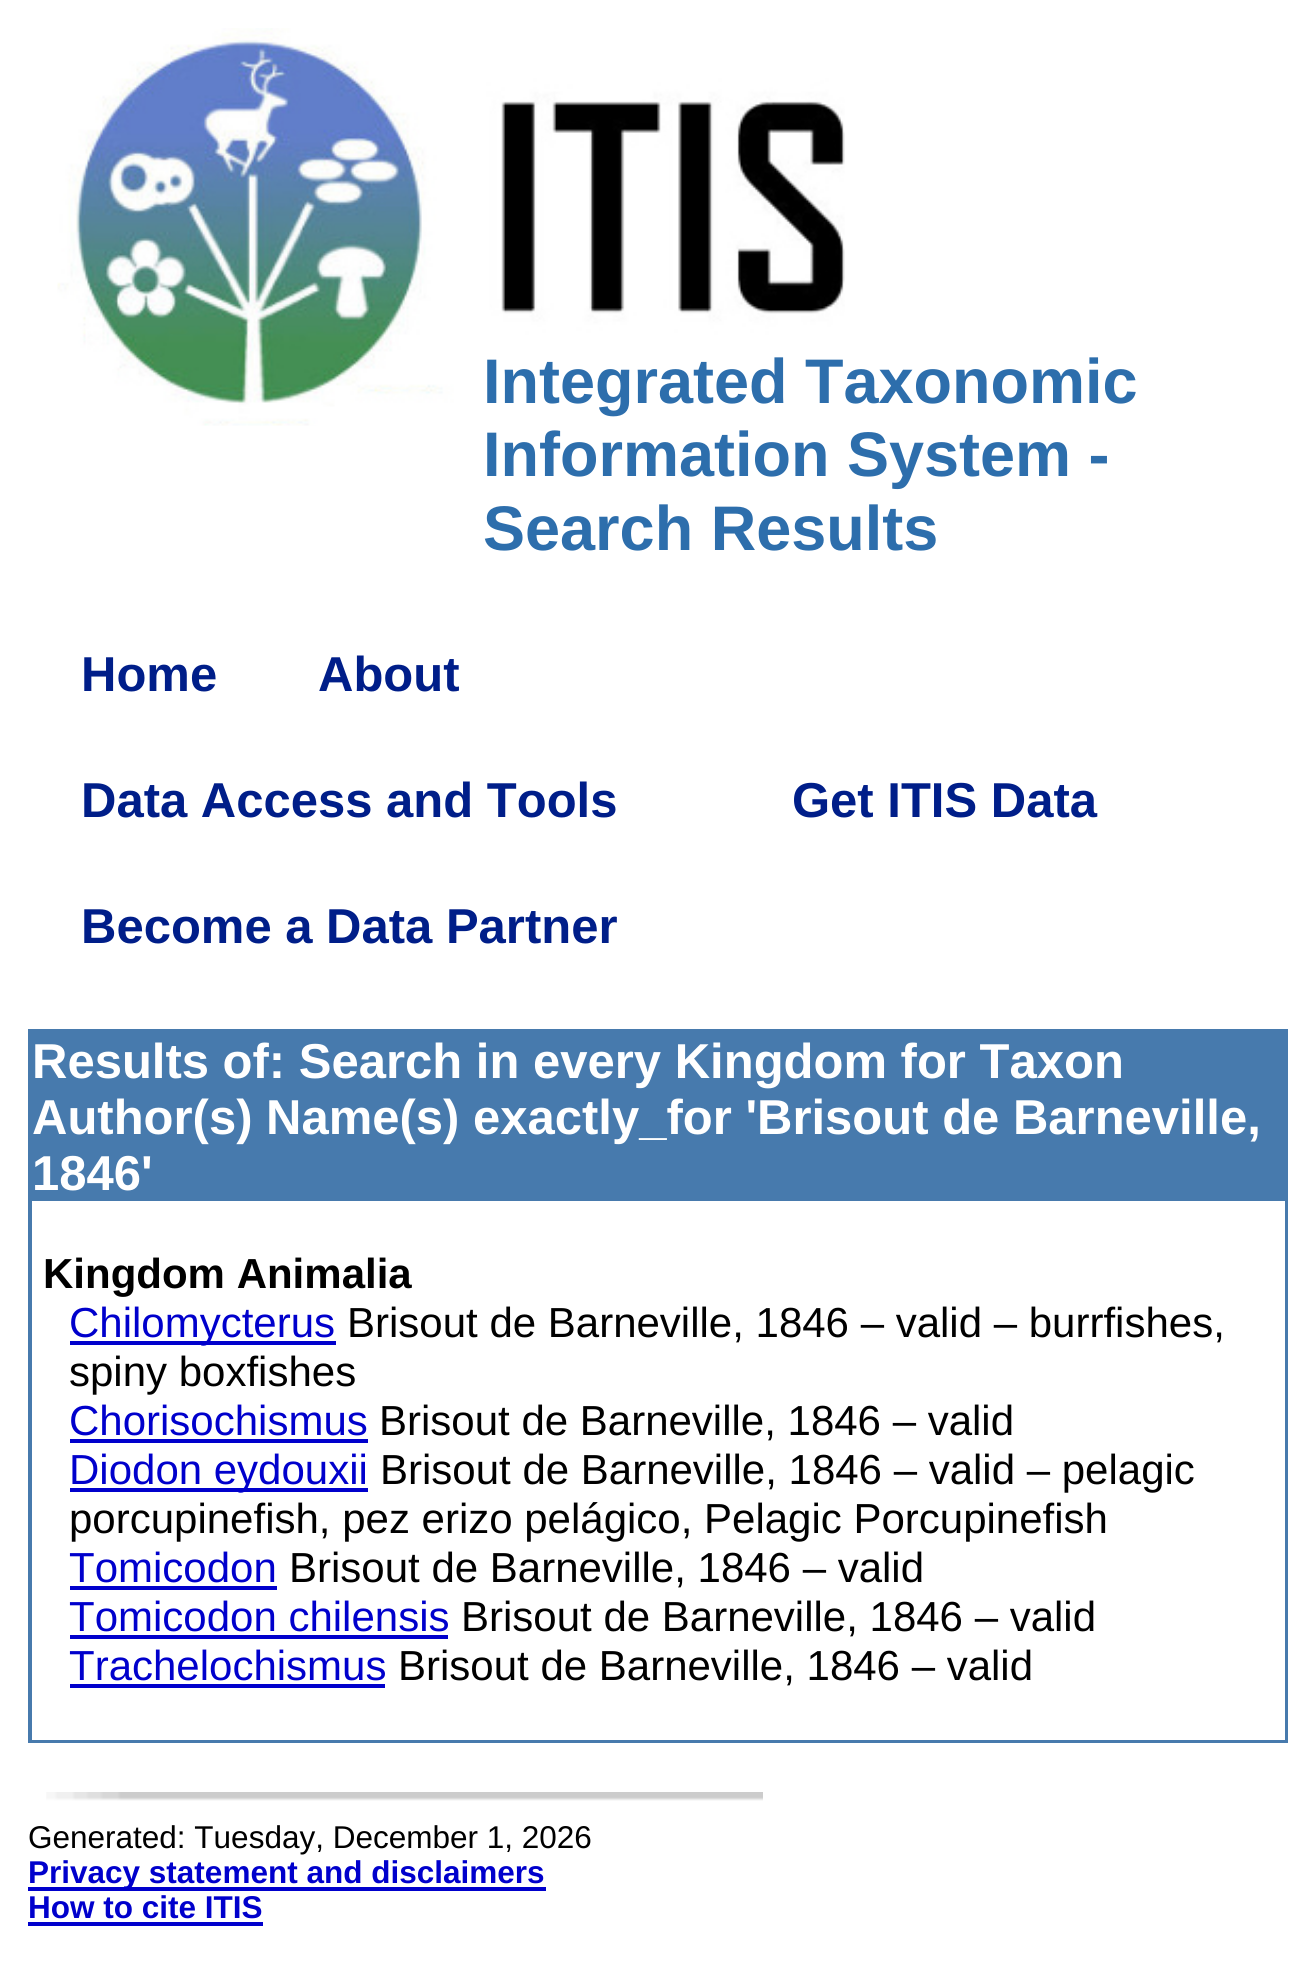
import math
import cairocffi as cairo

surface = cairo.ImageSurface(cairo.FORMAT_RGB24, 1315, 1964)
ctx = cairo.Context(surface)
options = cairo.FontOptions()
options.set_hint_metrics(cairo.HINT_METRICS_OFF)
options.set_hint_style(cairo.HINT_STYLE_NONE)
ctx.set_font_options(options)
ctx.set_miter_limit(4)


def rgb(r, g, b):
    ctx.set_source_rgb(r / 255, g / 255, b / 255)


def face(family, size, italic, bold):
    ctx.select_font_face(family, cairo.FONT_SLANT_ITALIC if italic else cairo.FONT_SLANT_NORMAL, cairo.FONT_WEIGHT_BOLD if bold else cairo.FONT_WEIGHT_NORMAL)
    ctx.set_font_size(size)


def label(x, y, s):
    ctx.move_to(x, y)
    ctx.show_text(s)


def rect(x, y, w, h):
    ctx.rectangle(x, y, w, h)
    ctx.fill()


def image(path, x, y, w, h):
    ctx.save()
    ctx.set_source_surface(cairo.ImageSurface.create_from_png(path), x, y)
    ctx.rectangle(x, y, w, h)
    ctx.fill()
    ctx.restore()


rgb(255, 255, 255)
ctx.paint()
image('image0.png', 57, 28, 788, 398)
face('Liberation Sans', 63, 0, 1)
rgb(45, 110, 172)
label(483, 403, 'Integrated Taxonomic')
label(483, 476, 'Information System -')
label(483, 550, 'Search Results')
face('Liberation Sans', 49, 0, 1)
rgb(0, 30, 137)
label(81, 691, 'Home')
label(318, 691, 'About')
label(81, 817, 'Data Access and Tools')
label(792, 817, 'Get ITIS Data')
label(81, 943, 'Become a Data Partner')
rgb(71, 122, 173)
rect(28, 1029, 1260, 714)
rgb(255, 255, 255)
label(32, 1078, 'Results of: Search in every Kingdom for Taxon')
label(32, 1134, 'Author(s) Name(s) exactly_for \'Brisout de Barneville,')
label(32, 1190, '1846\'')
rect(32, 1201, 1253, 539)
face('Liberation Sans', 42, 0, 1)
rgb(0, 0, 0)
label(43, 1288, 'Kingdom Animalia')
rgb(0, 0, 204)
rect(70, 1341, 266, 4)
face('Liberation Sans', 42, 0, 0)
label(69, 1337, 'Chilomycterus')
rgb(0, 0, 0)
label(347, 1337, 'Brisout de Barneville, 1846 – valid – burrfishes,')
label(69, 1386, 'spiny boxfishes')
rgb(0, 0, 204)
label(69, 1435, 'Chorisochismus')
rect(70, 1439, 298, 4)
rgb(0, 0, 0)
label(379, 1435, 'Brisout de Barneville, 1846 – valid')
rgb(0, 0, 204)
rect(70, 1488, 298, 4)
label(69, 1484, 'Diodon eydouxii')
rgb(0, 0, 0)
label(380, 1484, 'Brisout de Barneville, 1846 – valid – pelagic')
label(69, 1533, 'porcupinefish, pez erizo pelágico, Pelagic Porcupinefish')
rgb(0, 0, 204)
label(69, 1582, 'Tomicodon')
rect(70, 1586, 207, 4)
rgb(0, 0, 0)
label(289, 1582, 'Brisout de Barneville, 1846 – valid')
rgb(0, 0, 204)
label(69, 1631, 'Tomicodon chilensis')
rect(70, 1635, 378, 4)
rgb(0, 0, 0)
label(461, 1631, 'Brisout de Barneville, 1846 – valid')
rgb(0, 0, 204)
label(69, 1680, 'Trachelochismus')
rect(70, 1684, 315, 4)
rgb(0, 0, 0)
label(398, 1680, 'Brisout de Barneville, 1846 – valid')
image('image1.png', 46, 1792, 717, 9)
face('Liberation Sans', 31.5, 0, 0)
label(28, 1848, 'Generated: Tuesday, December 1, 2026')
rgb(0, 0, 204)
rect(28, 1887, 518, 4)
face('Liberation Sans', 31.5, 0, 1)
label(28, 1883, 'Privacy statement and disclaimers')
label(28, 1918, 'How to cite ITIS')
rect(28, 1922, 235, 4)
surface.write_to_png('render.png')
